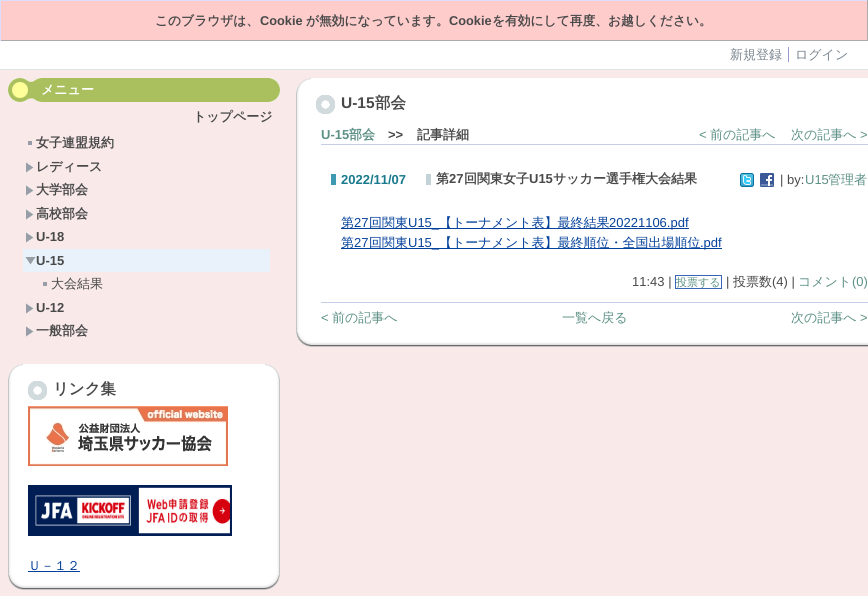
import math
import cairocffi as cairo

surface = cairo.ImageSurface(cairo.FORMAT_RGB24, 868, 596)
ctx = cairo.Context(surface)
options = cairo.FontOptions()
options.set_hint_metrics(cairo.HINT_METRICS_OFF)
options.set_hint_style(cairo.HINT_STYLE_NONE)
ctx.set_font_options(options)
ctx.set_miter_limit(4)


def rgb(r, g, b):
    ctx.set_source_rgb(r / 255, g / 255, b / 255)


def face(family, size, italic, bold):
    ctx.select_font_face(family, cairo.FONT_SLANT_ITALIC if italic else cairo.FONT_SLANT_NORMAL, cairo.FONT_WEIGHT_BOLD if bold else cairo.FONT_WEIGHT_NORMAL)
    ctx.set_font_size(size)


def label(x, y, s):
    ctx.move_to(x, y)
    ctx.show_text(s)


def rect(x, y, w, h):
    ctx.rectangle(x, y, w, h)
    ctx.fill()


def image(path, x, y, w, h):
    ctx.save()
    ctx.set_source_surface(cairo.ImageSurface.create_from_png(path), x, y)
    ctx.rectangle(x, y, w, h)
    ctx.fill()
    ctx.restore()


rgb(255, 204, 204)
ctx.paint()
rgb(221, 221, 255)
rect(0, 0, 868, 1)
rgb(170, 170, 170)
rect(867, 0, 1, 41)
rect(0, 40, 868, 1)
rgb(221, 221, 255)
rect(0, 0, 1, 41)
face('WenQuanYi Zen Hei', 12.75, 0, 1)
rgb(73, 73, 73)
label(155, 25, 'このブラウザは、')
face('Liberation Sans', 12.75, 0, 1)
label(260, 25, 'Cookie')
face('WenQuanYi Zen Hei', 12.75, 0, 1)
label(306, 25, 'が無効になっています。')
face('Liberation Sans', 12.75, 0, 1)
label(449, 25, 'Cookie')
face('WenQuanYi Zen Hei', 12.75, 0, 1)
label(492, 25, 'を有効にして再度、お越しください。')
rgb(255, 255, 255)
rect(0, 41, 868, 28)
rgb(223, 228, 231)
rect(0, 69, 868, 1)
face('WenQuanYi Zen Hei Medium', 13, 0, 0)
rgb(122, 133, 143)
label(730, 59, '新規登録')
label(795, 59, 'ログイン')
rgb(153, 153, 204)
rect(788, 47, 1, 15)
rgb(249, 233, 233)
rect(0, 70, 868, 526)
image('image0.png', 8, 78, 33, 24)
rgb(170, 192, 94)
rect(41, 78, 228, 24)
face('WenQuanYi Zen Hei', 13, 0, 1)
rgb(255, 255, 255)
label(41, 94, 'メニュー')
image('image1.png', 269, 78, 11, 24)
rgb(73, 73, 73)
label(193, 121, 'トップページ')
rgb(152, 158, 167)
rect(28, 141, 4, 4)
rgb(73, 73, 73)
label(36, 147, '女子連盟規約')
image('image2.png', 26, 162, 8, 11)
label(36, 171, 'レディース')
image('image2.png', 26, 185, 8, 11)
label(36, 194, '大学部会')
image('image2.png', 26, 209, 8, 11)
label(36, 218, '高校部会')
image('image2.png', 26, 232, 8, 11)
face('Liberation Sans', 13, 0, 1)
label(36, 241, 'U-18')
rgb(233, 242, 251)
rect(23, 249, 247, 23)
image('image3.png', 25, 257, 11, 8)
rgb(73, 73, 73)
label(36, 265, 'U-15')
rgb(152, 158, 167)
rect(43, 282, 4, 4)
face('WenQuanYi Zen Hei Medium', 13, 0, 0)
rgb(73, 73, 73)
label(51, 288, '大会結果')
image('image2.png', 26, 303, 8, 11)
face('Liberation Sans', 13, 0, 1)
label(36, 312, 'U-12')
image('image2.png', 26, 326, 8, 11)
face('WenQuanYi Zen Hei', 13, 0, 1)
label(36, 335, '一般部会')
image('image4.png', 8, 364, 15, 15)
rgb(255, 255, 255)
rect(23, 364, 242, 211)
image('image5.png', 265, 364, 15, 15)
image('image6.png', 8, 379, 15, 196)
rgb(209, 219, 221)
rect(28, 381, 19, 19)
image('image7.png', 28, 381, 19, 19)
face('WenQuanYi Zen Hei', 15.5, 0, 1)
rgb(73, 73, 73)
label(53, 394, 'リンク集')
image('image8.png', 28, 406, 200, 60)
image('image9.png', 28, 485, 204, 51)
face('WenQuanYi Zen Hei Medium', 13, 0, 0)
rgb(4, 65, 154)
label(28, 570, 'Ｕ－１２')
rect(28, 571, 52, 1)
image('image10.png', 265, 379, 15, 196)
image('image11.png', 8, 575, 15, 15)
image('image12.png', 23, 575, 242, 15)
image('image13.png', 265, 575, 15, 15)
image('image4.png', 296, 78, 15, 15)
rgb(255, 255, 255)
rect(311, 78, 557, 254)
image('image14.png', 296, 93, 15, 239)
rgb(209, 219, 221)
rect(316, 95, 19, 19)
image('image7.png', 316, 95, 19, 19)
face('Liberation Sans', 15.5, 0, 1)
rgb(73, 73, 73)
label(341, 108, 'U-15')
face('WenQuanYi Zen Hei', 15.5, 0, 1)
label(375, 108, '部会')
face('Liberation Sans', 13, 0, 1)
rgb(92, 144, 132)
label(321, 139, 'U-15')
face('WenQuanYi Zen Hei', 13, 0, 1)
label(349, 139, '部会')
face('Liberation Sans', 13, 0, 1)
rgb(73, 73, 73)
label(388, 139, '>>')
face('WenQuanYi Zen Hei', 13, 0, 1)
label(417, 139, '記事詳細')
face('Liberation Sans', 13, 0, 0)
rgb(92, 144, 132)
label(699, 139, '<')
face('WenQuanYi Zen Hei Medium', 13, 0, 0)
label(710, 139, '前の記事へ')
label(791, 139, '次の記事へ')
face('Liberation Sans', 13, 0, 0)
label(860, 139, '>')
rgb(61, 153, 177)
rect(331, 174, 5, 11)
face('Liberation Sans', 13, 0, 1)
rgb(24, 122, 140)
label(341, 184, '2022/11/07')
rgb(196, 211, 215)
rect(426, 174, 5, 11)
face('WenQuanYi Zen Hei', 13, 0, 1)
rgb(73, 73, 73)
label(436, 183, '第')
face('Liberation Sans', 13, 0, 1)
label(449, 183, '27')
face('WenQuanYi Zen Hei', 13, 0, 1)
label(464, 183, '回関東女子')
face('Liberation Sans', 13, 0, 1)
label(529, 183, 'U15')
face('WenQuanYi Zen Hei', 13, 0, 1)
label(553, 183, 'サッカー選手権大会結果')
rgb(199, 205, 230)
rect(321, 144, 547, 1)
image('image15.png', 740, 173, 14, 14)
image('image16.png', 760, 173, 14, 14)
face('Liberation Sans', 13, 0, 0)
rgb(73, 73, 73)
label(780, 184, '| by:')
rgb(92, 144, 132)
label(805, 184, 'U15')
face('WenQuanYi Zen Hei Medium', 13, 0, 0)
label(828, 184, '管理者')
rgb(4, 65, 154)
rect(341, 228, 348, 1)
label(341, 227, '第')
face('Liberation Sans', 13, 0, 0)
label(354, 227, '27')
face('WenQuanYi Zen Hei Medium', 13, 0, 0)
label(369, 227, '回関東')
face('Liberation Sans', 13, 0, 0)
label(408, 227, 'U15_')
face('WenQuanYi Zen Hei Medium', 13, 0, 0)
label(439, 227, '【トーナメント表】最終結果')
face('Liberation Sans', 13, 0, 0)
label(609, 227, '20221106.pdf')
rect(341, 248, 381, 1)
face('WenQuanYi Zen Hei Medium', 13, 0, 0)
label(341, 247, '第')
face('Liberation Sans', 13, 0, 0)
label(354, 247, '27')
face('WenQuanYi Zen Hei Medium', 13, 0, 0)
label(369, 247, '回関東')
face('Liberation Sans', 13, 0, 0)
label(408, 247, 'U15_')
face('WenQuanYi Zen Hei Medium', 13, 0, 0)
label(439, 247, '【トーナメント表】最終順位・全国出場順位')
face('Liberation Sans', 13, 0, 0)
label(700, 247, '.pdf')
rgb(199, 205, 230)
rect(321, 302, 547, 1)
rgb(73, 73, 73)
label(632, 286, '11:43 |')
ctx.rectangle(675.5, 275.5, 46, 13)
rgb(56, 101, 183)
ctx.set_line_width(1)
ctx.stroke()
face('WenQuanYi Zen Hei Medium', 11, 0, 0)
rgb(92, 144, 132)
label(676, 286, '投票する')
face('Liberation Sans', 13, 0, 0)
rgb(73, 73, 73)
label(726, 286, '|')
face('WenQuanYi Zen Hei Medium', 13, 0, 0)
label(733, 286, '投票数')
face('Liberation Sans', 13, 0, 0)
label(772, 286, '(4) |')
face('WenQuanYi Zen Hei Medium', 13, 0, 0)
rgb(92, 144, 132)
label(798, 286, 'コメント')
face('Liberation Sans', 13, 0, 0)
label(852, 286, '(0)')
label(321, 322, '<')
face('WenQuanYi Zen Hei Medium', 13, 0, 0)
label(332, 322, '前の記事へ')
label(562, 322, '一覧へ戻る')
label(791, 322, '次の記事へ')
face('Liberation Sans', 13, 0, 0)
label(860, 322, '>')
image('image11.png', 296, 332, 15, 15)
image('image17.png', 311, 332, 557, 15)
surface.write_to_png('render.png')
